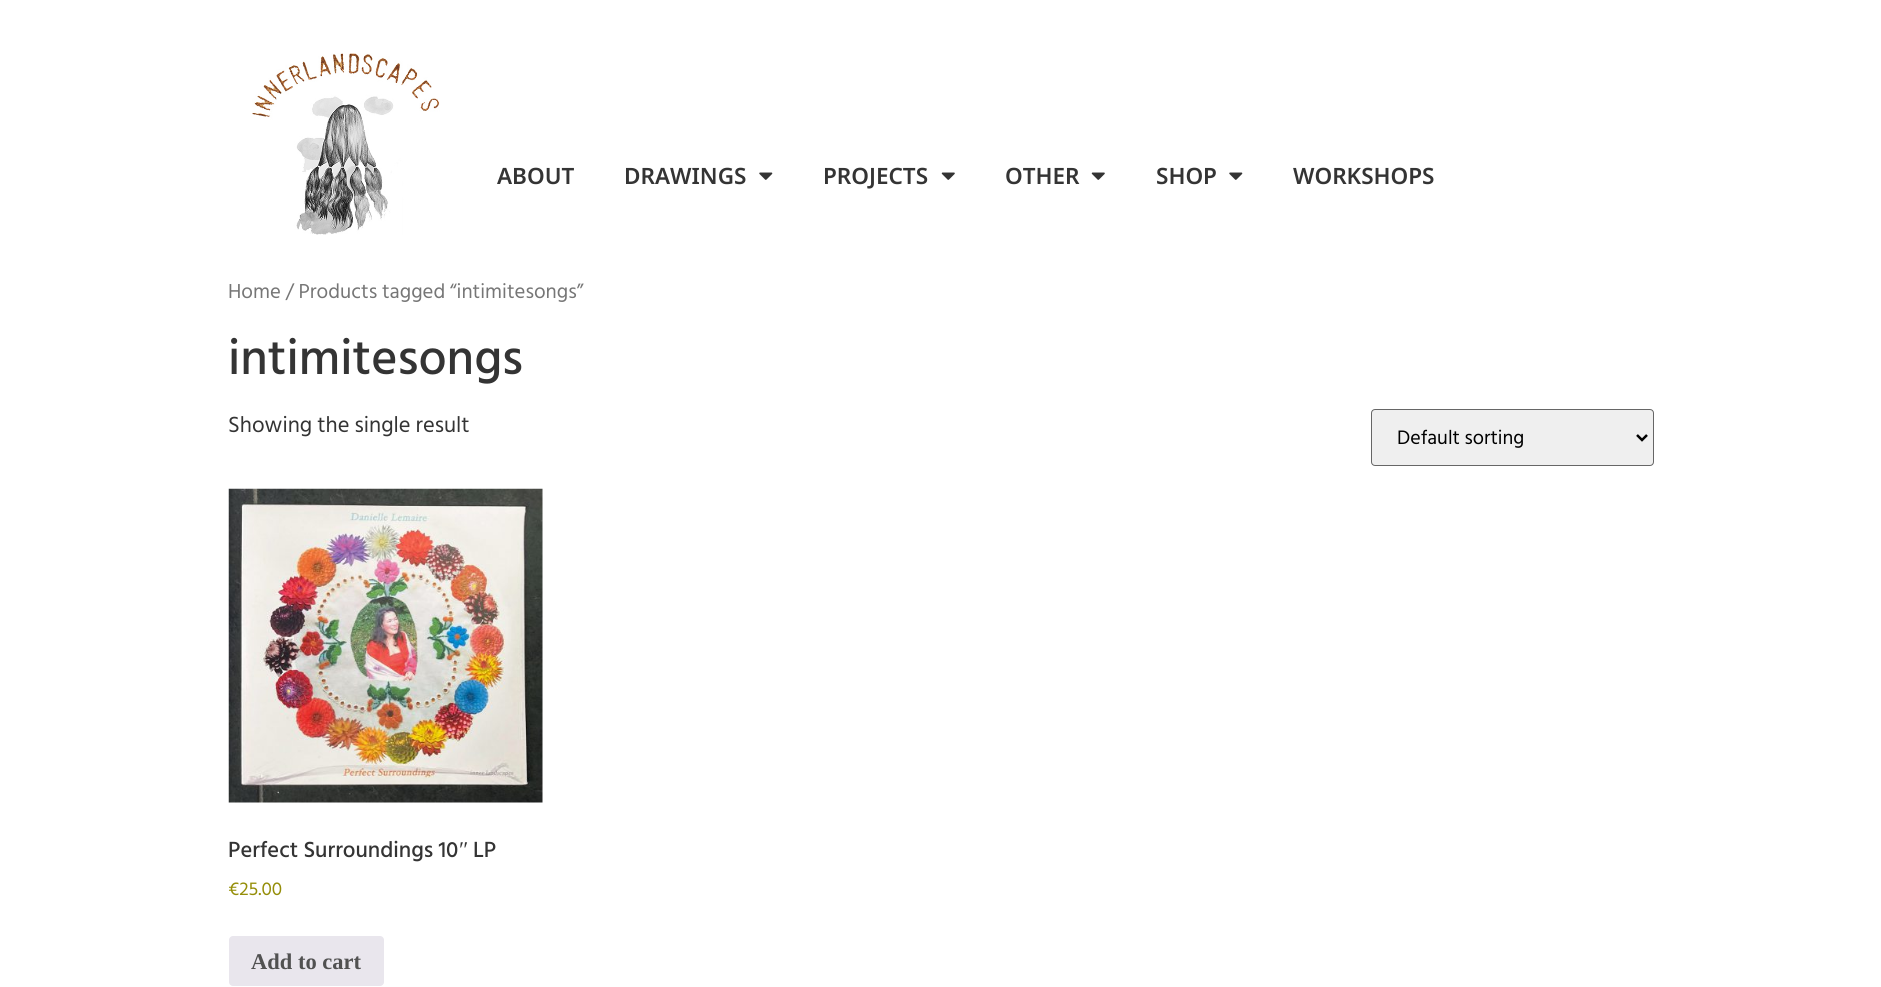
import math
import cairocffi as cairo

surface = cairo.ImageSurface(cairo.FORMAT_RGB24, 1881, 987)
ctx = cairo.Context(surface)
options = cairo.FontOptions()
options.set_hint_metrics(cairo.HINT_METRICS_OFF)
options.set_hint_style(cairo.HINT_STYLE_NONE)
ctx.set_font_options(options)
ctx.set_miter_limit(4)


def rgb(r, g, b):
    ctx.set_source_rgb(r / 255, g / 255, b / 255)


def face(family, size, italic, bold):
    ctx.select_font_face(family, cairo.FONT_SLANT_ITALIC if italic else cairo.FONT_SLANT_NORMAL, cairo.FONT_WEIGHT_BOLD if bold else cairo.FONT_WEIGHT_NORMAL)
    ctx.set_font_size(size)


def label(x, y, s):
    ctx.move_to(x, y)
    ctx.show_text(s)


def rrect(x, y, w, h, r):
    ctx.new_sub_path()
    for i, (u, v) in enumerate([(x + w - r, y + h - r), (x + r, y + h - r), (x + r, y + r), (x + w - r, y + r)]):
        ctx.arc(u, v, r, i * math.pi / 2, (i + 1) * math.pi / 2)
    ctx.close_path()


def image(path, x, y, w, h):
    ctx.save()
    ctx.set_source_surface(cairo.ImageSurface.create_from_png(path), x, y)
    ctx.rectangle(x, y, w, h)
    ctx.fill()
    ctx.restore()


rgb(255, 255, 255)
ctx.paint()
image('image0.png', 252, 53, 188, 182)
face('Noto Sans SemiBold', 22.5, 0, 0)
rgb(52, 52, 52)
label(497, 184, 'ABOUT')
label(624, 184, 'DRAWINGS')
image('image1.png', 759, 172, 14, 8)
label(823, 184, 'PROJECTS')
image('image2.png', 941, 172, 14, 8)
label(1005, 184, 'OTHER')
image('image2.png', 1091, 172, 14, 8)
label(1156, 184, 'SHOP')
image('image1.png', 1229, 172, 14, 8)
label(1293, 184, 'WORKSHOPS')
face('Hind Siliguri', 20.75, 0, 0)
rgb(118, 118, 118)
label(228, 298, 'Home / Products tagged “intimitesongs”')
face('Hind Siliguri Medium', 50, 0, 0)
rgb(52, 52, 52)
label(228, 374, 'intimitesongs')
face('Hind Siliguri', 22.5, 0, 0)
label(228, 432, 'Showing the single result')
rgb(239, 239, 239)
rrect(1371.5, 409.5, 282, 56, 3.5)
ctx.fill_preserve()
rgb(102, 102, 102)
ctx.set_line_width(1)
ctx.stroke()
ctx.new_path()
ctx.move_to(1637, 435)
ctx.line_to(1642, 440)
ctx.line_to(1647, 435)
rgb(0, 0, 0)
ctx.set_line_width(2.5)
ctx.stroke()
face('Hind Siliguri', 20, 0, 0)
label(1397, 444, 'Default sorting')
image('image3.png', 228, 488, 315, 315)
face('Hind Siliguri Medium', 22.5, 0, 0)
rgb(52, 52, 52)
label(228, 857, 'Perfect Surroundings 10')
face('Liberation Serif', 22.5, 0, 0)
label(459, 857, '″')
face('Hind Siliguri Medium', 22.5, 0, 0)
label(473, 857, 'LP')
face('Hind Siliguri', 19, 0, 0)
rgb(149, 142, 9)
label(228, 895, '€25.00')
rgb(233, 230, 237)
rrect(229, 936, 155, 50, 4)
ctx.fill()
face('Liberation Serif', 22.5, 0, 1)
rgb(81, 81, 81)
label(251, 969, 'Add to cart')
surface.write_to_png('render.png')
